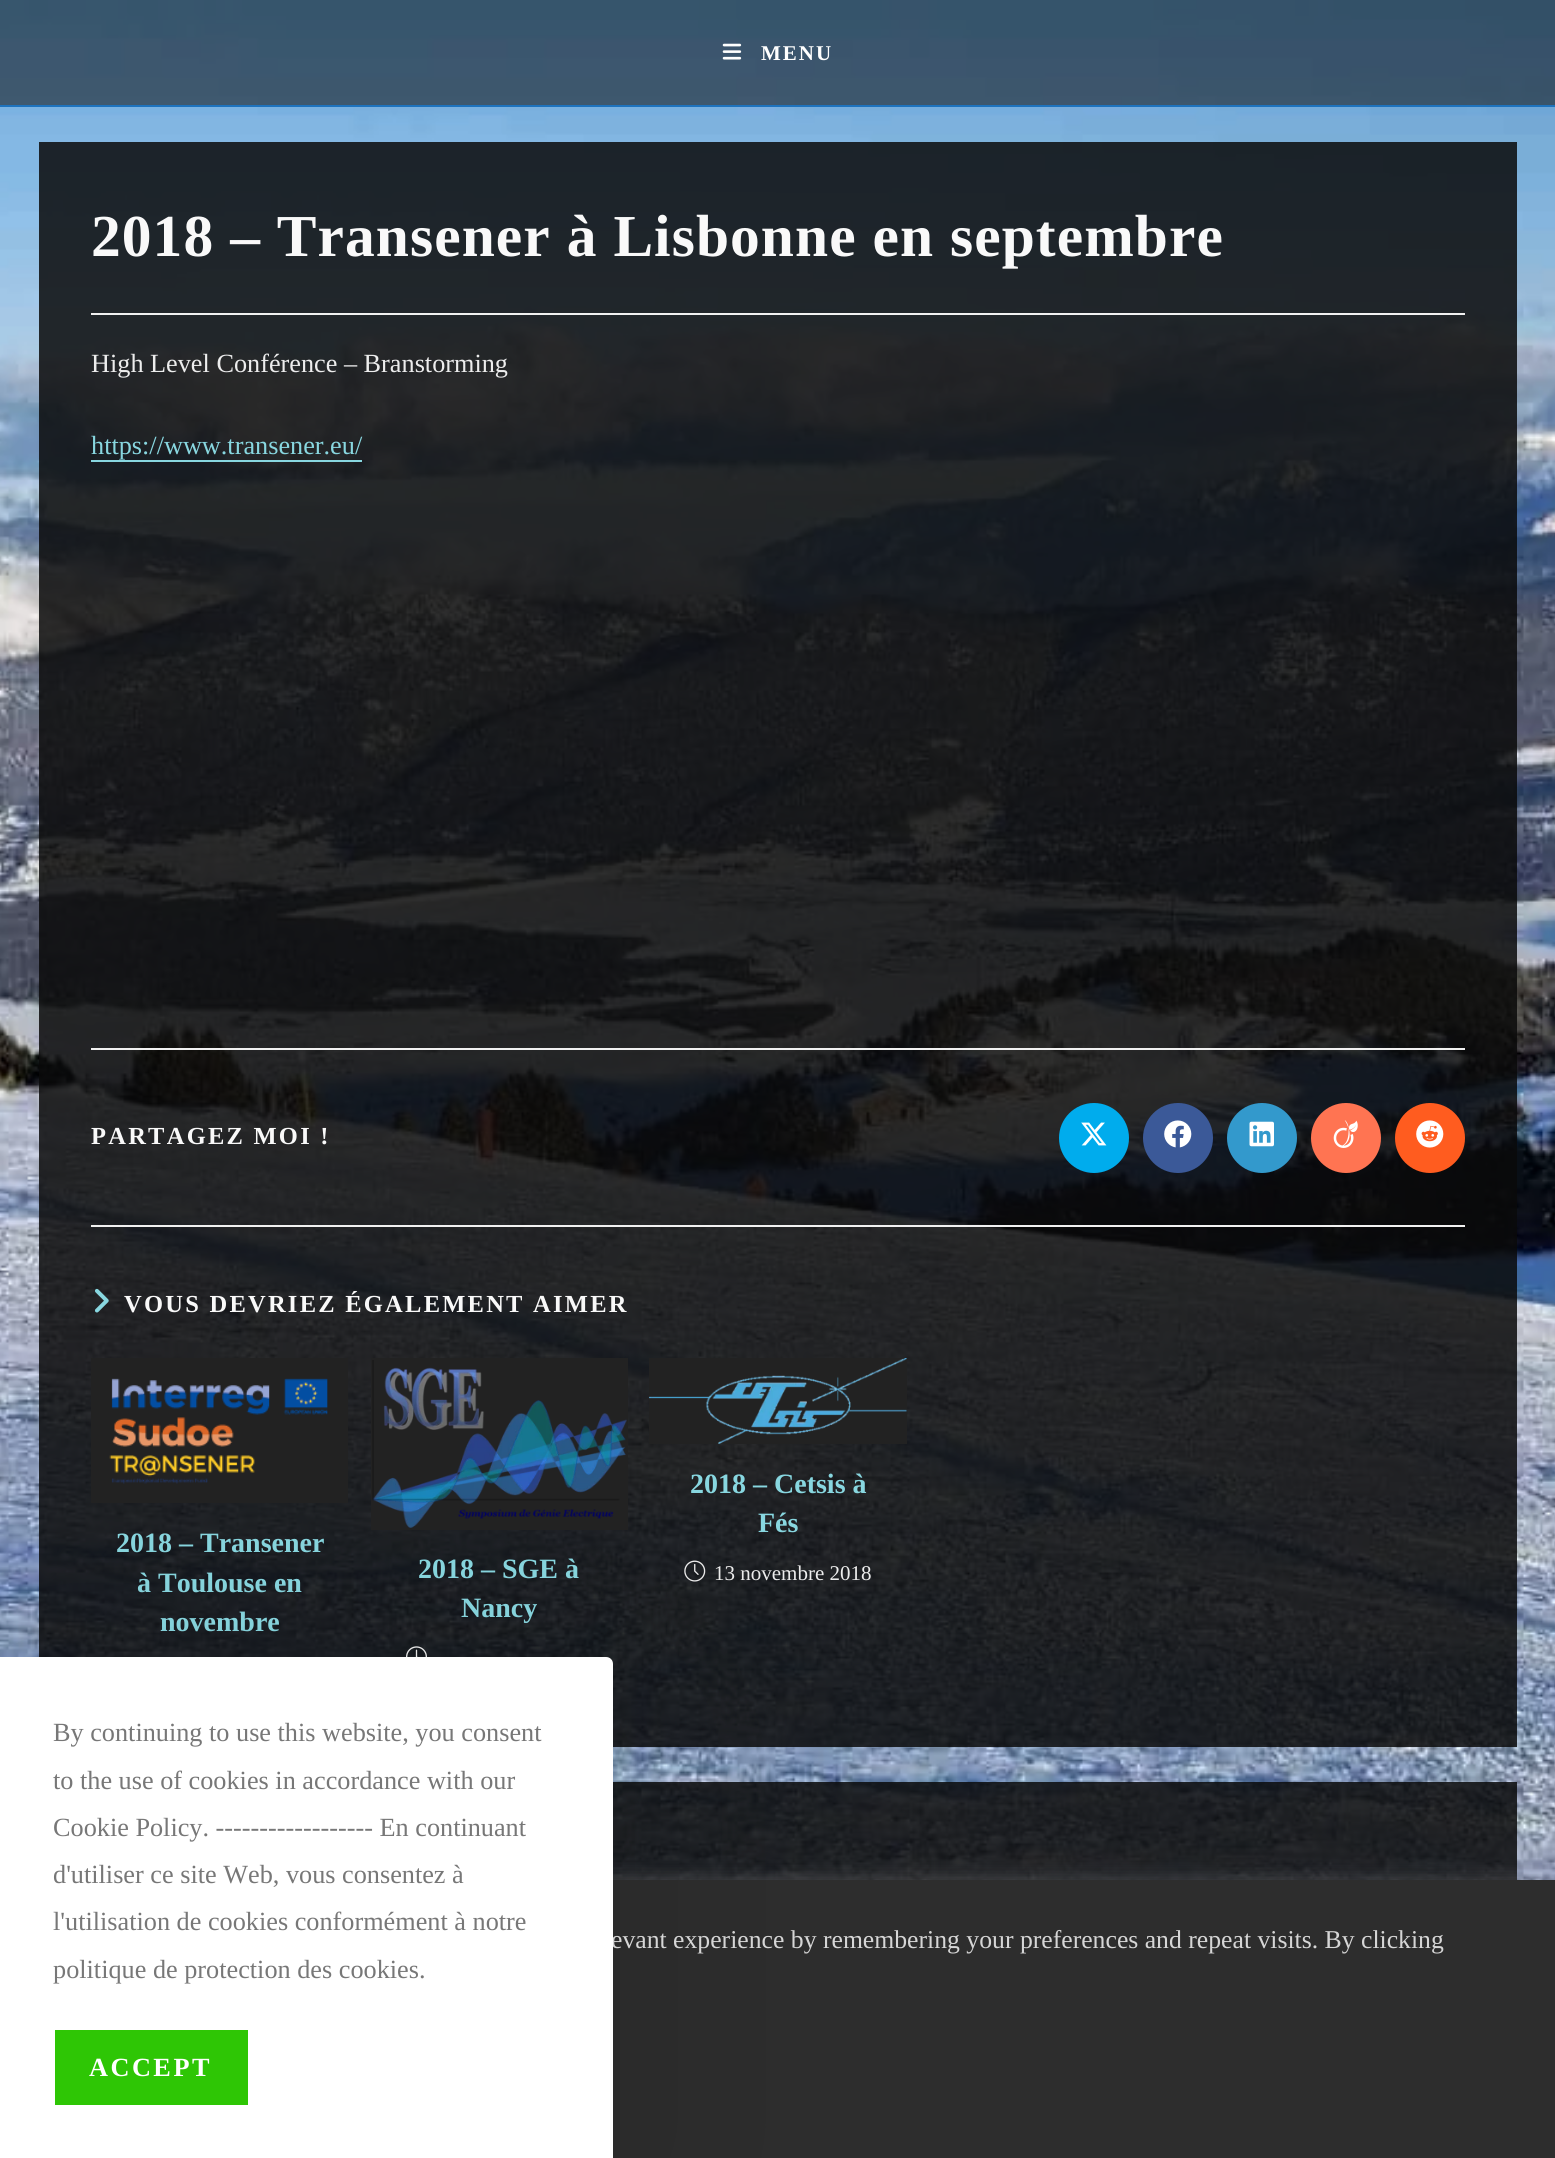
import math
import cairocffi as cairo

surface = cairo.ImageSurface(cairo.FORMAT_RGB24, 1555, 2158)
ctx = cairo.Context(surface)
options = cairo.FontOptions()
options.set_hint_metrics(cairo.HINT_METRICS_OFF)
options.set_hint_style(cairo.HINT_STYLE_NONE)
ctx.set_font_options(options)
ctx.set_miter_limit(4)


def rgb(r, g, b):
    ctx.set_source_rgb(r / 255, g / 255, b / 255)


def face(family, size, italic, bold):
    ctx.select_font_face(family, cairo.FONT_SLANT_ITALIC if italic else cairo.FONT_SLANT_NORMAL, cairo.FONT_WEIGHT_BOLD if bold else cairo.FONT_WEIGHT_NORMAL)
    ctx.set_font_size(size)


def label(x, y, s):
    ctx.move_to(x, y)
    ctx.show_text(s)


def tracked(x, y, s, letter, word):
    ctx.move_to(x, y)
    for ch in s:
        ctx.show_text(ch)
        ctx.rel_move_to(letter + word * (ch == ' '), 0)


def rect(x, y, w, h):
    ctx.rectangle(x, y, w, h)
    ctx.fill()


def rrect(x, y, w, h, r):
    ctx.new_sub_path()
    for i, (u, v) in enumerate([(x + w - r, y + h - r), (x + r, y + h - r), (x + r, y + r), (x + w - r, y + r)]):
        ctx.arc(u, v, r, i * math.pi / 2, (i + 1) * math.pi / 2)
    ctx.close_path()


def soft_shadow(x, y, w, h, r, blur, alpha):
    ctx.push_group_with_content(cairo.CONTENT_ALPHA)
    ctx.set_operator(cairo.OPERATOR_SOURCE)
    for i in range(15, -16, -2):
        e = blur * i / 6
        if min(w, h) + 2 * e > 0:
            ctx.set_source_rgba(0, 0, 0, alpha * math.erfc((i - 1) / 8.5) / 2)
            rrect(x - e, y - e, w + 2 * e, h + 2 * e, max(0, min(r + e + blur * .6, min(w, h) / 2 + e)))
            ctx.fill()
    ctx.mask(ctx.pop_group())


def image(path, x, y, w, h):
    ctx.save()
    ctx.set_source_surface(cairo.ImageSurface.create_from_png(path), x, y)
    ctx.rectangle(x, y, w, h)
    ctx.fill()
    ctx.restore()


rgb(255, 255, 255)
ctx.paint()
image('image0.png', 0, 0, 1555, 1880)
rgb(30, 115, 190)
rect(0, 105, 1555, 2)
ctx.set_source_rgba(0.039, 0.039, 0.039, 0.53)
rect(0, 0, 1555, 105)
image('image1.png', 722, 43, 20, 17)
face('Liberation Serif', 21, 0, 1)
rgb(255, 255, 255)
tracked(761, 60, 'MENU', 2, 0)
ctx.set_source_rgba(0.039, 0.039, 0.039, 0.85)
rect(39, 142, 1478, 1605)
rgb(241, 241, 241)
rect(91, 313, 1374, 2)
face('Liberation Serif', 59.5, 0, 1)
rgb(249, 249, 249)
tracked(91, 256, '2018 – Transener à Lisbonne en septembre', 1.05, 0)
face('Liberation Serif', 26.25, 0, 0)
rgb(237, 237, 237)
label(91, 372, 'High Level Conférence – Branstorming')
rgb(136, 215, 224)
label(91, 454, 'https://www.transener.eu/')
rect(91, 460, 271, 2)
rgb(241, 241, 241)
rect(91, 1048, 1374, 2)
face('Liberation Serif', 24.5, 0, 1)
rgb(249, 249, 249)
tracked(91, 1144, 'PARTAGEZ MOI !', 2.25, 0)
rgb(0, 172, 237)
ctx.new_path()
ctx.arc(1094, 1138, 35, 0, 2 * math.pi)
ctx.fill()
image('image2.png', 1081, 1122, 26, 24)
rgb(59, 89, 152)
ctx.arc(1178, 1138, 35, 0, 2 * math.pi)
ctx.fill()
image('image3.png', 1164, 1120, 28, 28)
rgb(51, 153, 204)
ctx.arc(1262, 1138, 35, 0, 2 * math.pi)
ctx.fill()
image('image4.png', 1249, 1121, 25, 26)
rgb(255, 116, 82)
ctx.arc(1346, 1138, 35, 0, 2 * math.pi)
ctx.fill()
image('image5.png', 1333, 1120, 25, 28)
rgb(255, 92, 31)
ctx.arc(1430, 1138, 35, 0, 2 * math.pi)
ctx.fill()
image('image6.png', 1416, 1120, 28, 28)
rgb(241, 241, 241)
rect(91, 1225, 1374, 2)
image('image7.png', 94, 1288, 15, 25)
rgb(249, 249, 249)
tracked(124, 1312, 'VOUS DEVRIEZ ÉGALEMENT AIMER', 2.25, 0)
rgb(34, 34, 34)
rect(91, 1358, 257, 145)
image('image8.png', 109, 1378, 219, 106)
face('Liberation Serif', 28, 0, 1)
rgb(136, 215, 224)
label(116, 1552, '2018 – Transener')
label(137, 1592, 'à Toulouse en')
label(160, 1631, 'novembre')
rgb(34, 34, 34)
rect(371, 1358, 257, 172)
image('image9.png', 372, 1360, 255, 168)
rgb(136, 215, 224)
label(418, 1578, '2018 – SGE à')
label(461, 1617, 'Nancy')
image('image10.png', 406, 1646, 21, 11)
rgb(34, 34, 34)
rect(649, 1358, 258, 86)
image('image11.png', 649, 1358, 258, 86)
rgb(136, 215, 224)
label(690, 1493, '2018 – Cetsis à')
label(758, 1532, 'Fés')
image('image12.png', 684, 1560, 22, 22)
face('Liberation Serif', 21, 0, 0)
rgb(237, 237, 237)
label(714, 1580, '13 novembre 2018')
ctx.set_source_rgba(0.039, 0.039, 0.039, 0.85)
rect(613, 1782, 904, 98)
rgb(172, 171, 171)
soft_shadow(0, 1878, 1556, 280, 0, 9, 0.3)
rgb(45, 45, 45)
rect(613, 1880, 942, 278)
rgb(0, 0, 0)
soft_shadow(0, 1692, 613, 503, 7, 131, 0.1)
face('Liberation Serif', 25.7, 0, 0)
rgb(214, 214, 214)
label(611, 1948, 'evant experience by remembering your preferences and repeat visits. By clicking')
rgb(255, 255, 255)
ctx.new_path()
ctx.move_to(0, 1657)
ctx.line_to(606, 1657)
ctx.curve_to(610, 1657, 613, 1660, 613, 1664)
ctx.line_to(613, 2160)
ctx.line_to(0, 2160)
ctx.close_path()
ctx.fill()
face('Liberation Serif', 26.25, 0, 0)
rgb(119, 119, 119)
label(53, 1741, 'By continuing to use this website, you consent')
label(53, 1789, 'to the use of cookies in accordance with our')
label(53, 1836, 'Cookie Policy. ------------------ En continuant')
label(53, 1883, 'd\'utiliser ce site Web, vous consentez à')
label(53, 1930, 'l\'utilisation de cookies conformément à notre')
label(53, 1978, 'politique de protection des cookies.')
rgb(46, 198, 5)
rect(55, 2030, 193, 75)
face('Liberation Serif', 26.25, 0, 1)
rgb(255, 255, 255)
tracked(89, 2076, 'ACCEPT', 2.5, 0)
surface.write_to_png('render.png')
